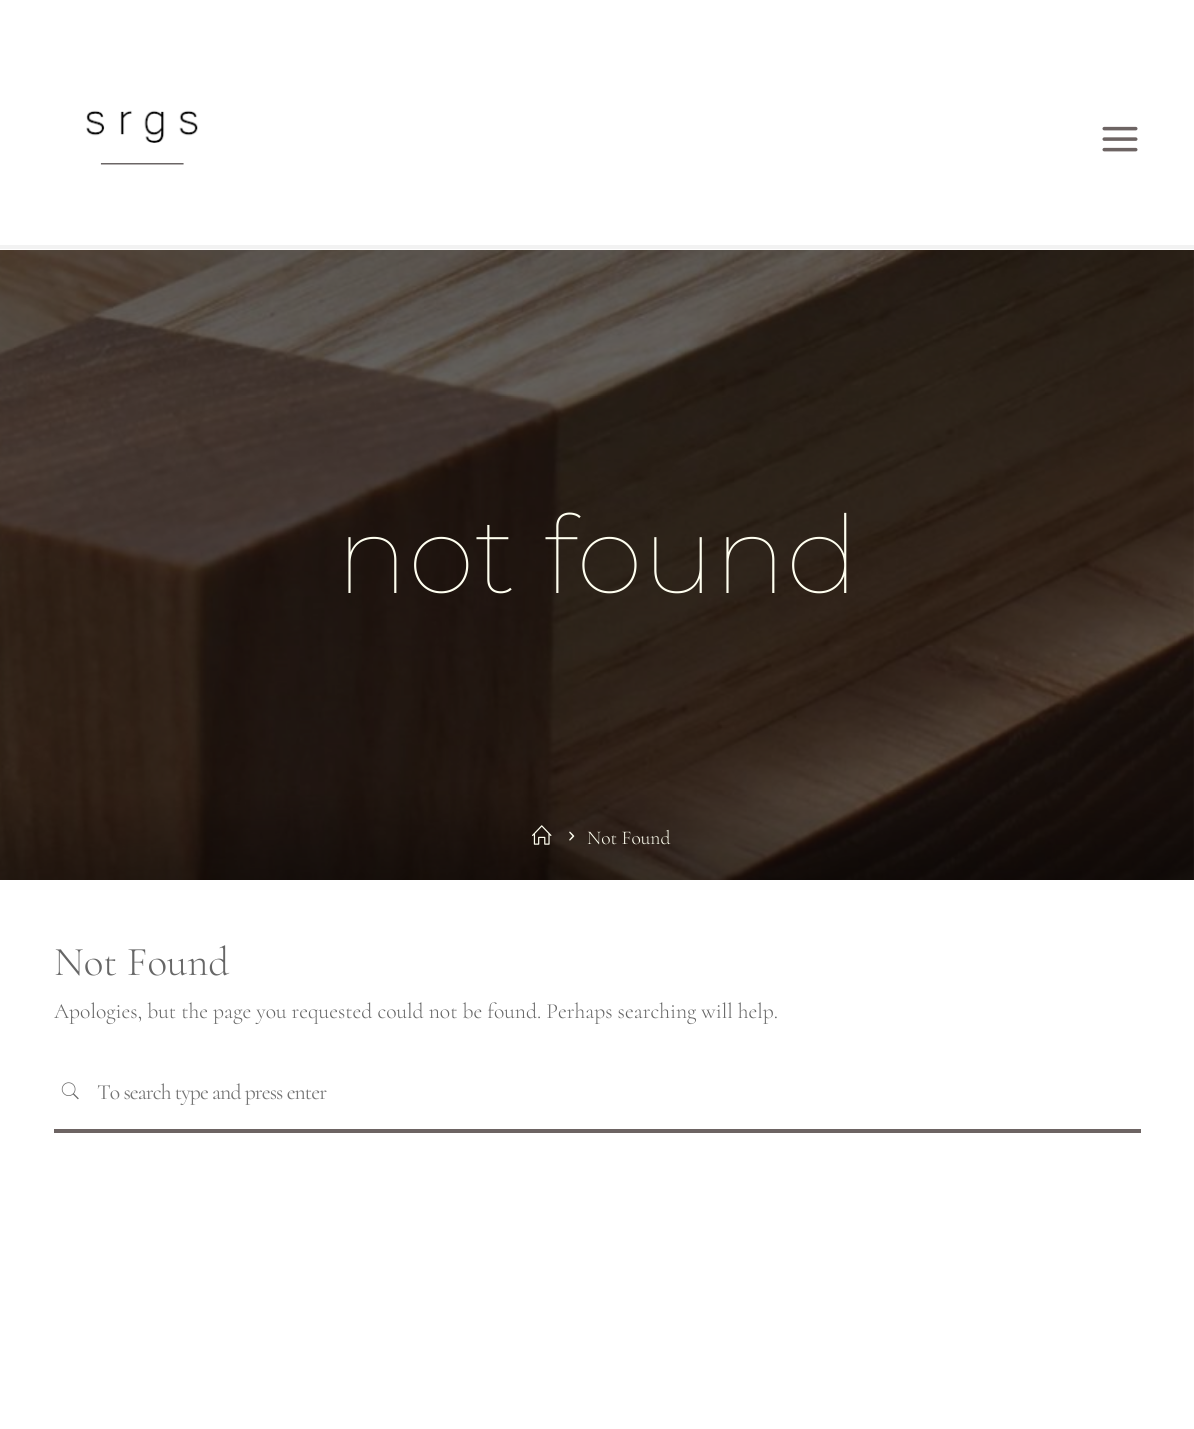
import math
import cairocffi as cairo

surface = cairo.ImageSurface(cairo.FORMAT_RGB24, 1194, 1429)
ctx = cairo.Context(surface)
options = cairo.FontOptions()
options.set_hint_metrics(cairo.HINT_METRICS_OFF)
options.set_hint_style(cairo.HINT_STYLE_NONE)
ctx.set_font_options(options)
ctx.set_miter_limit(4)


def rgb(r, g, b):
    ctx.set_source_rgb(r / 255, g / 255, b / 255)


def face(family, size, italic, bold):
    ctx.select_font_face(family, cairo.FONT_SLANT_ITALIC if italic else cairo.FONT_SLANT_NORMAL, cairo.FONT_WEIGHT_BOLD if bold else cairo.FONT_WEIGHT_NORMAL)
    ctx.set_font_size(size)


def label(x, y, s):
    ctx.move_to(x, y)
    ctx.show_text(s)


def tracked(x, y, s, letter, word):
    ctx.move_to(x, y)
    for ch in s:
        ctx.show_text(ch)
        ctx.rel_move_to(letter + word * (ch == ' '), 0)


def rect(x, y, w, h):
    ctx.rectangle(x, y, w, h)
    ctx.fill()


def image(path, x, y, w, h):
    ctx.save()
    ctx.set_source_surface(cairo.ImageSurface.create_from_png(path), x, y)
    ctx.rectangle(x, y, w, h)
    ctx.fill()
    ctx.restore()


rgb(255, 255, 255)
ctx.paint()
image('image0.png', 86, 110, 112, 55)
image('image1.png', 1102, 126, 36, 26)
rgb(242, 242, 242)
rect(0, 245, 1194, 4)
image('image2.png', 0, 250, 1194, 630)
face('Montserrat Thin', 108, 0, 0)
rgb(255, 255, 240)
label(336, 593, 'not found')
image('image3.png', 532, 825, 20, 20)
image('image4.png', 569, 831, 6, 10)
face('Cormorant Light', 19.5, 0, 0)
label(587, 844, 'Not Found')
face('Cormorant Light', 41, 0, 0)
rgb(102, 102, 102)
label(54, 975, 'Not Found')
face('Cormorant Light', 21.6, 0, 0)
label(54, 1018, 'Apologies, but the page you requested could not be found. Perhaps searching will help.')
image('image5.png', 61, 1082, 18, 18)
rgb(109, 100, 99)
rect(54, 1129, 1087, 4)
face('Cormorant', 21.6, 0, 0)
rgb(117, 117, 117)
tracked(97, 1099, 'To search type and press enter', -0.9, 0)
surface.write_to_png('render.png')
